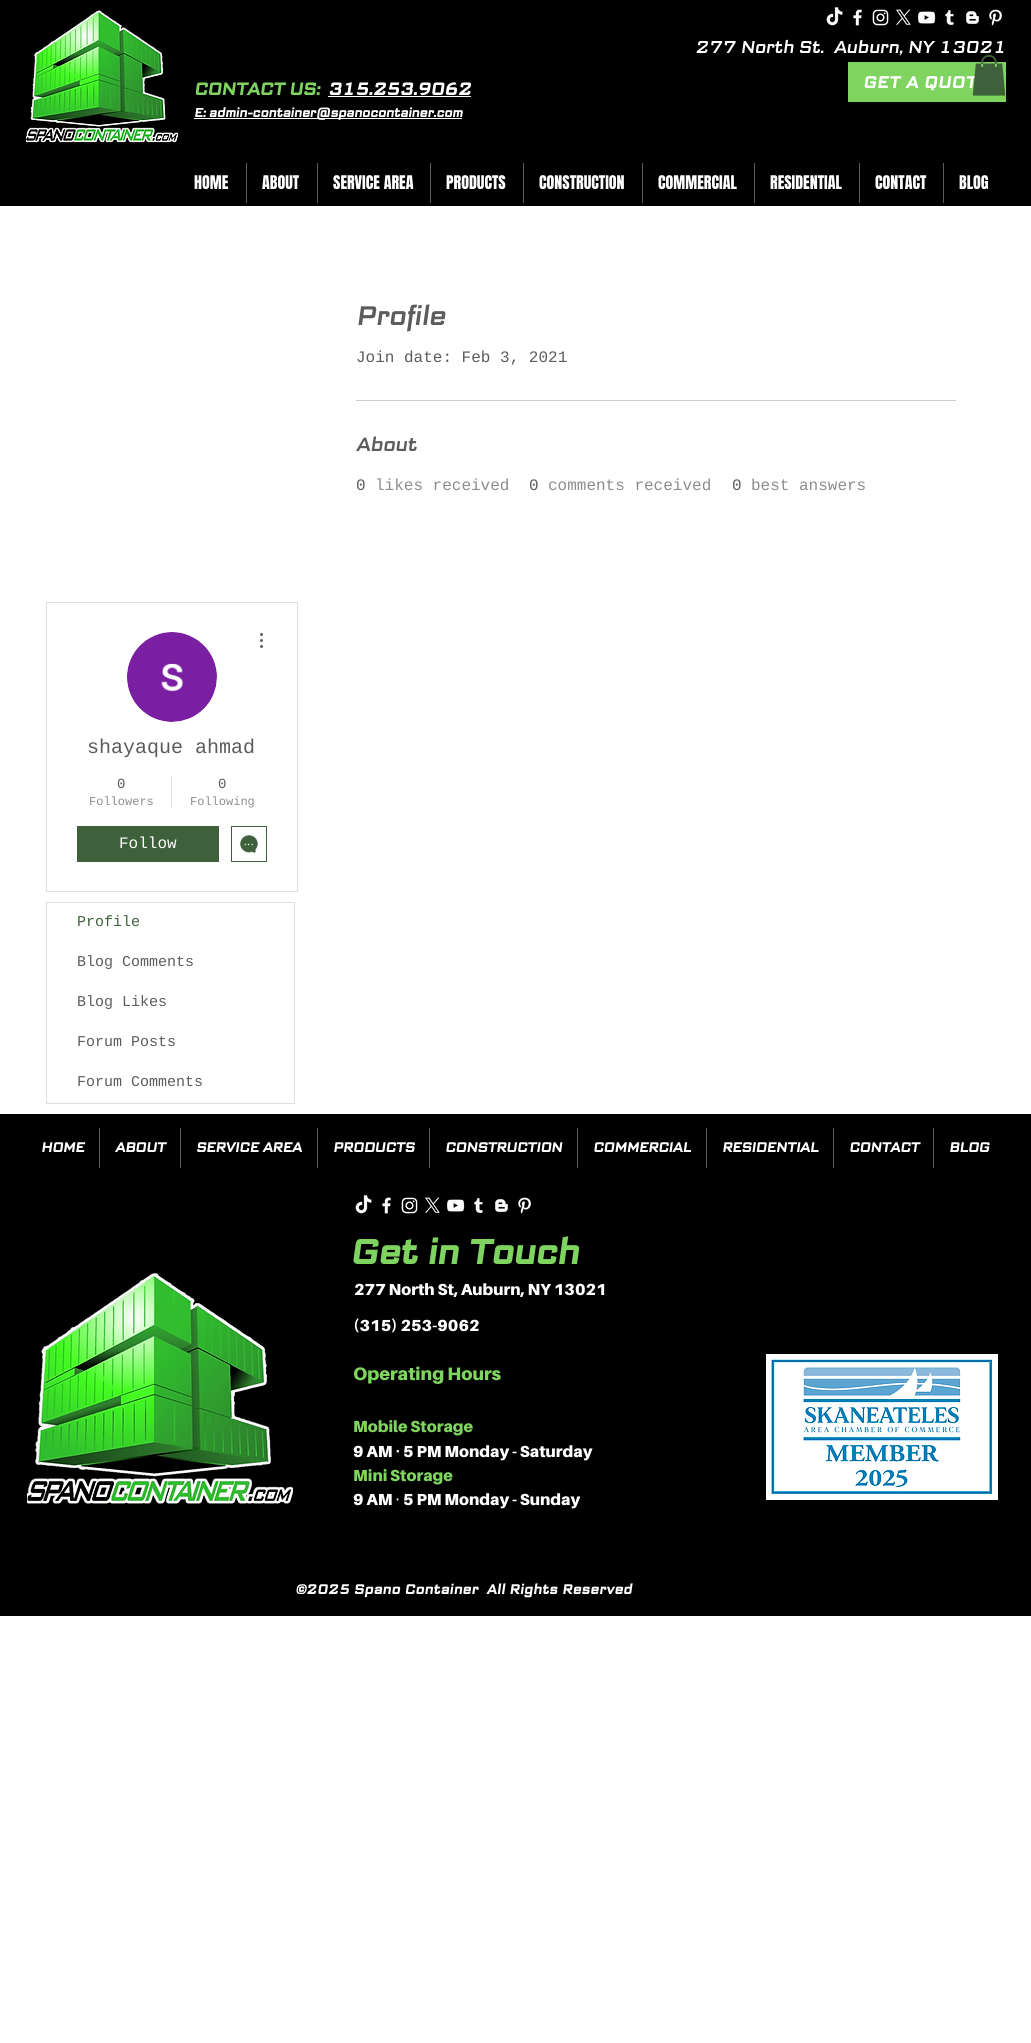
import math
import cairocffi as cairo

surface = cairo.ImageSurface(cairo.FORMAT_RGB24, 1031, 2043)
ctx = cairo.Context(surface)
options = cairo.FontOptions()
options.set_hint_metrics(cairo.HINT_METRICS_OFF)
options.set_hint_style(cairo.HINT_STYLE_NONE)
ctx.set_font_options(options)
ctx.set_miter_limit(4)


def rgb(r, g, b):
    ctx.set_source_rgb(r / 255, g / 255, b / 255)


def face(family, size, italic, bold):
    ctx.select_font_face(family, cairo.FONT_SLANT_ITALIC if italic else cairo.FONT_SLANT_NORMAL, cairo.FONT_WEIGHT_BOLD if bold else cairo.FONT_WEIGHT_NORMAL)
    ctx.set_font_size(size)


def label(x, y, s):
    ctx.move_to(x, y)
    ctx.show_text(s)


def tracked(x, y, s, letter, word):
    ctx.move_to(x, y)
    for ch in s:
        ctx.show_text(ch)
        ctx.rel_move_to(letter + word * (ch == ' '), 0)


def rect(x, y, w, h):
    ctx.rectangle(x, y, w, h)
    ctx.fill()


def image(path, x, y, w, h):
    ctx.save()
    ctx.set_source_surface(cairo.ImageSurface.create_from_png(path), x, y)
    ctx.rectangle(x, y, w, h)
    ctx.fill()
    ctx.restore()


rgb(255, 255, 255)
ctx.paint()
rgb(0, 0, 0)
rect(0, 0, 1031, 206)
image('image0.png', 26, 10, 152, 133)
image('image1.png', 826, 7, 17, 19)
image('image2.png', 853, 9, 9, 17)
image('image3.png', 872, 9, 17, 17)
image('image4.png', 896, 9, 15, 16)
image('image5.png', 918, 11, 18, 13)
image('image6.png', 945, 10, 9, 16)
image('image7.png', 966, 11, 13, 13)
image('image8.png', 989, 9, 13, 17)
face('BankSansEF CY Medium', 18, 1, 0)
rgb(255, 255, 255)
label(695, 53, '277 North St.  Auburn, NY 13021')
face('BankSansEF CY', 18, 1, 1)
rgb(126, 212, 95)
label(194, 95, 'CONTACT US:')
rgb(255, 255, 255)
label(328, 95, '315.253.9062')
rect(328, 96, 143, 1)
rect(194, 118, 268, 1)
face('BankSansEF CY', 13, 1, 1)
label(194, 117, 'E: admin-container@spanocontainer.com')
rgb(126, 212, 95)
rect(848, 62, 158, 40)
face('BankSansEF CY', 17, 1, 1)
rgb(255, 255, 255)
tracked(863, 88, 'GET A QUOT', 0.75, 0)
image('image9.png', 972, 55, 34, 41)
face('Anton', 16, 0, 0)
label(194, 189, 'HOME')
rgb(92, 92, 92)
rect(246, 163, 1, 40)
rgb(255, 255, 255)
label(262, 189, 'ABOUT')
rgb(92, 92, 92)
rect(317, 163, 1, 40)
rgb(255, 255, 255)
label(333, 189, 'SERVICE AREA')
rgb(92, 92, 92)
rect(430, 163, 1, 40)
rgb(255, 255, 255)
label(446, 189, 'PRODUCTS')
rgb(92, 92, 92)
rect(523, 163, 1, 40)
rgb(255, 255, 255)
label(539, 189, 'CONSTRUCTION')
rgb(92, 92, 92)
rect(642, 163, 1, 40)
rgb(255, 255, 255)
label(658, 189, 'COMMERCIAL')
rgb(92, 92, 92)
rect(754, 163, 1, 40)
rgb(255, 255, 255)
label(770, 189, 'RESIDENTIAL')
rgb(92, 92, 92)
rect(859, 163, 1, 40)
rgb(255, 255, 255)
label(875, 189, 'CONTACT')
rgb(92, 92, 92)
rect(943, 163, 1, 40)
rgb(255, 255, 255)
label(959, 189, 'BLOG')
face('BankSansEF CY Medium', 28, 1, 0)
rgb(92, 92, 92)
label(356, 325, 'Profile')
face('Liberation Mono', 16, 0, 0)
label(356, 362, 'Join date: Feb 3, 2021')
rgb(206, 206, 206)
rect(356, 400, 600, 1)
face('BankSansEF CY Medium', 20, 1, 0)
rgb(92, 92, 92)
label(356, 451, 'About')
face('Liberation Mono', 16, 0, 0)
label(356, 490, '0')
rgb(141, 141, 141)
label(375, 490, 'likes received')
rgb(92, 92, 92)
label(529, 490, '0')
rgb(141, 141, 141)
label(548, 490, 'comments received')
rgb(92, 92, 92)
label(732, 490, '0')
rgb(141, 141, 141)
label(751, 490, 'best answers')
ctx.rectangle(46.5, 602.5, 251, 289)
rgb(222, 222, 222)
ctx.set_line_width(1)
ctx.stroke()
rgb(216, 216, 216)
ctx.arc(172, 677, 45, 0, 2 * math.pi)
ctx.fill()
image('image10.png', 127, 632, 90, 90)
image('image11.png', 260, 633, 3, 15)
face('Liberation Mono', 20, 0, 0)
rgb(92, 92, 92)
label(87, 753, 'shayaque ahmad')
face('Liberation Mono', 14, 0, 0)
label(117, 788, '0')
face('Liberation Mono', 12, 0, 0)
rgb(141, 141, 141)
label(89, 805, 'Followers')
rgb(222, 222, 222)
rect(171, 776, 1, 32)
face('Liberation Mono', 14, 0, 0)
rgb(92, 92, 92)
label(218, 788, '0')
face('Liberation Mono', 12, 0, 0)
rgb(141, 141, 141)
label(190, 805, 'Following')
rgb(62, 96, 59)
rect(77, 826, 142, 36)
face('Liberation Mono', 16, 0, 0)
rgb(255, 255, 255)
label(119, 848, 'Follow')
ctx.rectangle(231.5, 826.5, 35, 35)
rgb(62, 96, 59)
ctx.stroke()
image('image12.png', 240, 835, 18, 18)
ctx.rectangle(46.5, 902.5, 248, 201)
rgb(222, 222, 222)
ctx.stroke()
face('Liberation Mono', 15, 0, 0)
rgb(62, 96, 59)
label(77, 926, 'Profile')
rgb(92, 92, 92)
label(77, 966, 'Blog Comments')
label(77, 1006, 'Blog Likes')
label(77, 1046, 'Forum Posts')
label(77, 1086, 'Forum Comments')
rgb(0, 0, 0)
rect(0, 1114, 1031, 502)
face('BankSansEF CY', 14, 1, 1)
rgb(255, 255, 255)
label(41, 1152, 'HOME')
rgb(92, 92, 92)
rect(99, 1128, 1, 40)
rgb(255, 255, 255)
label(115, 1152, 'ABOUT')
rgb(92, 92, 92)
rect(180, 1128, 1, 40)
rgb(255, 255, 255)
label(196, 1152, 'SERVICE AREA')
rgb(92, 92, 92)
rect(317, 1128, 1, 40)
rgb(255, 255, 255)
label(333, 1152, 'PRODUCTS')
rgb(92, 92, 92)
rect(429, 1128, 1, 40)
rgb(255, 255, 255)
label(445, 1152, 'CONSTRUCTION')
rgb(92, 92, 92)
rect(577, 1128, 1, 40)
rgb(255, 255, 255)
label(593, 1152, 'COMMERCIAL')
rgb(92, 92, 92)
rect(706, 1128, 1, 40)
rgb(255, 255, 255)
label(722, 1152, 'RESIDENTIAL')
rgb(92, 92, 92)
rect(833, 1128, 1, 40)
rgb(255, 255, 255)
label(849, 1152, 'CONTACT')
rgb(92, 92, 92)
rect(933, 1128, 1, 40)
rgb(255, 255, 255)
label(949, 1152, 'BLOG')
image('image1.png', 355, 1195, 17, 19)
image('image2.png', 382, 1197, 9, 17)
image('image3.png', 401, 1197, 17, 17)
image('image4.png', 425, 1197, 15, 16)
image('image5.png', 447, 1199, 18, 13)
image('image6.png', 474, 1198, 9, 16)
image('image7.png', 495, 1199, 13, 13)
image('image8.png', 518, 1197, 13, 17)
face('BankSansEF CY', 36, 1, 1)
rgb(126, 212, 95)
label(350, 1264, 'Get in Touch')
image('image13.png', 27, 1273, 266, 231)
face('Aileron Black', 16, 0, 0)
rgb(255, 255, 255)
label(354, 1295, '277 North St, Auburn, NY 13021')
label(353, 1331, '(315) 253-9062')
face('Aileron Black', 18, 0, 0)
rgb(126, 212, 95)
label(353, 1380, 'Operating Hours')
face('Aileron Black', 16, 0, 0)
label(353, 1432, 'Mobile Storage')
rgb(255, 255, 255)
label(353, 1457, '9 AM')
face('DejaVu Sans', 16, 0, 1)
label(395, 1457, '⋅')
face('Aileron Black', 16, 0, 0)
label(403, 1457, '5 PM Monday - Saturday')
rgb(126, 212, 95)
label(353, 1481, 'Mini Storage')
rgb(255, 255, 255)
label(353, 1505, '9 AM')
face('DejaVu Sans', 16, 0, 0)
label(395, 1505, '⋅')
face('Aileron Black', 16, 0, 0)
label(403, 1505, '5 PM Monday - Sunday')
image('image14.png', 766, 1354, 232, 146)
face('BankSansEF CY', 14, 1, 1)
tracked(296, 1594, '©2025 Spano Container  All Rights Reserved', 0.4, 0)
surface.write_to_png('render.png')
